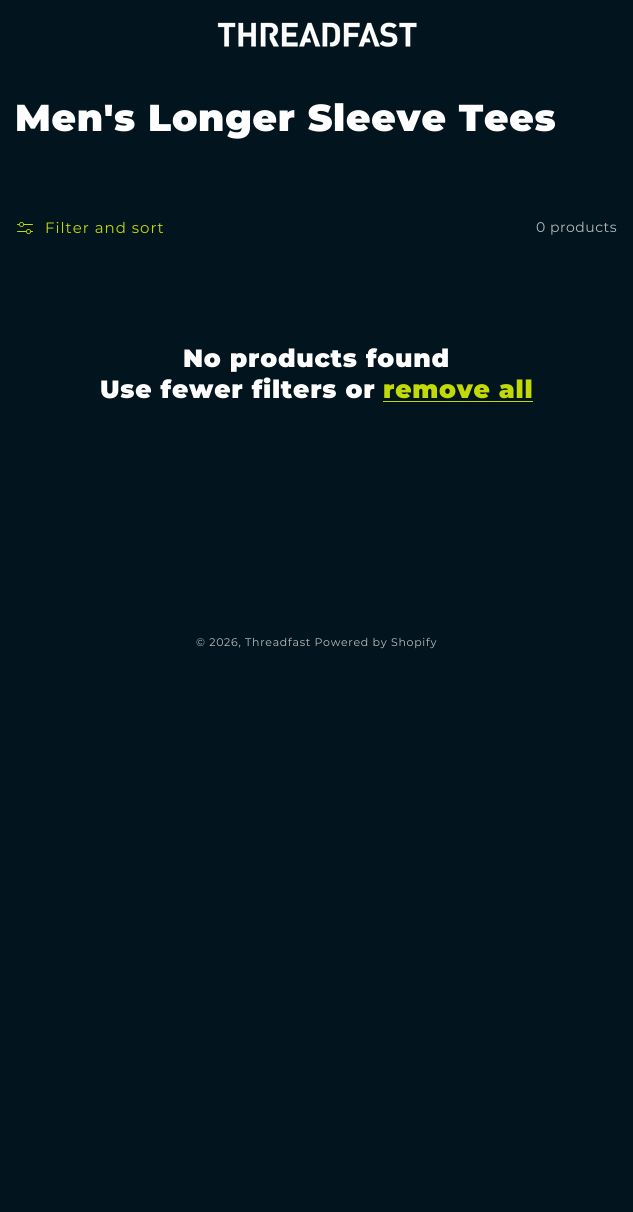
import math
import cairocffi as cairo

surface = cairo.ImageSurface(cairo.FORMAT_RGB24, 633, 1212)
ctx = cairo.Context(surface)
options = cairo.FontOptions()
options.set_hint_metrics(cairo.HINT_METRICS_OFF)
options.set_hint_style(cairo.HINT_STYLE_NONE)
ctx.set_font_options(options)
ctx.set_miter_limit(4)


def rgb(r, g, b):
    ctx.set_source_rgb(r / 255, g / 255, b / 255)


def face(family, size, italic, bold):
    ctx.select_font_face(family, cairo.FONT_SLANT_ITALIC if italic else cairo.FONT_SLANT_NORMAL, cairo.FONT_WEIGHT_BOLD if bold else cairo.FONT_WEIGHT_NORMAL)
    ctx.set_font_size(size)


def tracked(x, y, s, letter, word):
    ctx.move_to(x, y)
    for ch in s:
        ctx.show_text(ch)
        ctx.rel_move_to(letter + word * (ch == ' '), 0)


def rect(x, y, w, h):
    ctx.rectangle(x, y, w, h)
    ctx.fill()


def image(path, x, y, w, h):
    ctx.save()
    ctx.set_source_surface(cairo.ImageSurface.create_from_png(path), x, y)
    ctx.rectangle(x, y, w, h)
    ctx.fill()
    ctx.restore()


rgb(2, 20, 29)
ctx.paint()
image('image0.png', 217, 22, 200, 25)
face('Montserrat Black', 37.5, 0, 0)
rgb(255, 255, 255)
tracked(15, 131, 'Men\'s Longer Sleeve Tees', 0.75, 0)
image('image1.png', 17, 222, 16, 12)
face('Montserrat', 15, 0, 0)
rgb(193, 217, 6)
tracked(45, 233, 'Filter and sort', 1, 0)
face('Montserrat', 14, 0, 0)
rgb(179, 185, 187)
tracked(536, 232, '0 products', 0.5, 0)
face('Montserrat Black', 25, 0, 0)
rgb(255, 255, 255)
tracked(183, 367, 'No products found', 0.75, 0)
tracked(100, 398, 'Use fewer filters or', 0.75, 0)
rgb(193, 217, 6)
tracked(383, 398, 'remove all', 0.75, 0)
rect(383, 401, 150, 1)
face('Montserrat', 11, 0, 0)
rgb(185, 190, 192)
tracked(196, 646, '© 2026, Threadfast Powered by Shopify', 0.7, 0)
surface.write_to_png('render.png')
